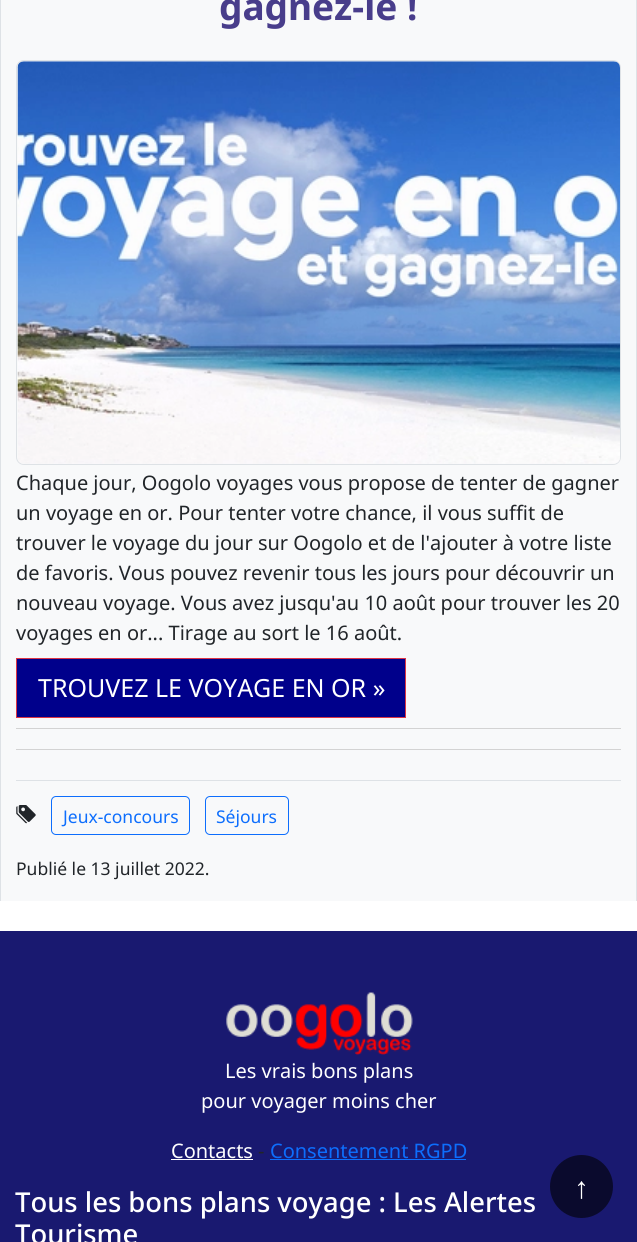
import math
import cairocffi as cairo

surface = cairo.ImageSurface(cairo.FORMAT_RGB24, 637, 1242)
ctx = cairo.Context(surface)
options = cairo.FontOptions()
options.set_hint_metrics(cairo.HINT_METRICS_OFF)
options.set_hint_style(cairo.HINT_STYLE_NONE)
ctx.set_font_options(options)
ctx.set_miter_limit(4)


def rgb(r, g, b):
    ctx.set_source_rgb(r / 255, g / 255, b / 255)


def face(family, size, italic, bold):
    ctx.select_font_face(family, cairo.FONT_SLANT_ITALIC if italic else cairo.FONT_SLANT_NORMAL, cairo.FONT_WEIGHT_BOLD if bold else cairo.FONT_WEIGHT_NORMAL)
    ctx.set_font_size(size)


def label(x, y, s):
    ctx.move_to(x, y)
    ctx.show_text(s)


def rect(x, y, w, h):
    ctx.rectangle(x, y, w, h)
    ctx.fill()


def rrect(x, y, w, h, r):
    ctx.new_sub_path()
    for i, (u, v) in enumerate([(x + w - r, y + h - r), (x + r, y + h - r), (x + r, y + r), (x + w - r, y + r)]):
        ctx.arc(u, v, r, i * math.pi / 2, (i + 1) * math.pi / 2)
    ctx.close_path()


def image(path, x, y, w, h):
    ctx.save()
    ctx.set_source_surface(cairo.ImageSurface.create_from_png(path), x, y)
    ctx.rectangle(x, y, w, h)
    ctx.fill()
    ctx.restore()


rgb(255, 255, 255)
ctx.paint()
rgb(248, 249, 250)
rect(1, 0, 635, 901)
rgb(222, 226, 230)
rect(636, 0, 1, 901)
rect(0, 0, 1, 901)
face('Noto Sans', 37, 0, 1)
rgb(72, 61, 139)
label(219, 20, 'gagnez-le !')
rrect(16.5, 60.5, 604, 404, 7.5)
rgb(222, 226, 230)
ctx.set_line_width(1)
ctx.stroke()
image('image0.png', 17, 61, 603, 403)
face('Noto Sans', 20, 0, 0)
rgb(33, 37, 41)
label(16, 490, 'Chaque jour, Oogolo voyages vous propose de tenter de gagner')
label(16, 520, 'un voyage en or. Pour tenter votre chance, il vous suffit de')
label(16, 550, 'trouver le voyage du jour sur Oogolo et de l\'ajouter à votre liste')
label(16, 580, 'de favoris. Vous pouvez revenir tous les jours pour découvrir un')
label(16, 610, 'nouveau voyage. Vous avez jusqu\'au 10 août pour trouver les 20')
label(16, 640, 'voyages en or... Tirage au sort le 16 août.')
rgb(0, 0, 139)
ctx.rectangle(16.5, 658.5, 389, 59)
ctx.fill_preserve()
rgb(220, 53, 69)
ctx.stroke()
face('Noto Sans', 25, 0, 0)
rgb(255, 255, 255)
label(38, 697, 'TROUVEZ LE VOYAGE EN OR »')
rgb(211, 211, 211)
rect(16, 728, 605, 1)
rect(16, 749, 605, 1)
rgb(222, 226, 230)
rect(16, 780, 605, 1)
image('image1.png', 16, 805, 20, 19)
rrect(51.5, 796.5, 138, 38, 4.5)
rgb(13, 110, 253)
ctx.stroke()
face('Noto Sans', 17.5, 0, 0)
label(63, 823, 'Jeux-concours')
rrect(205.5, 796.5, 83, 38, 4.5)
ctx.stroke()
label(216, 823, 'Séjours')
rgb(33, 37, 41)
label(16, 875, 'Publié le 13 juillet 2022.')
rgb(25, 25, 112)
rect(0, 931, 637, 311)
image('image2.png', 226, 992, 187, 63)
face('Noto Sans', 20, 0, 0)
rgb(255, 255, 255)
label(225, 1078, 'Les vrais bons plans')
label(201, 1108, 'pour voyager moins cher')
label(171, 1158, 'Contacts')
rect(171, 1159, 82, 1)
rgb(33, 37, 41)
label(258, 1158, '-')
rgb(13, 110, 253)
label(270, 1158, 'Consentement RGPD')
rect(270, 1159, 196, 1)
face('Noto Sans Medium', 27.4, 0, 0)
rgb(255, 255, 255)
label(15, 1212, 'Tous les bons plans voyage : Les Alertes')
label(15, 1244, 'Tourisme')
rgb(10, 10, 45)
ctx.new_path()
ctx.arc(581.5, 1186.5, 31.5, 0, 2 * math.pi)
ctx.fill()
face('Liberation Sans', 30, 0, 0)
rgb(255, 255, 255)
label(574, 1198, '↑')
surface.write_to_png('render.png')
